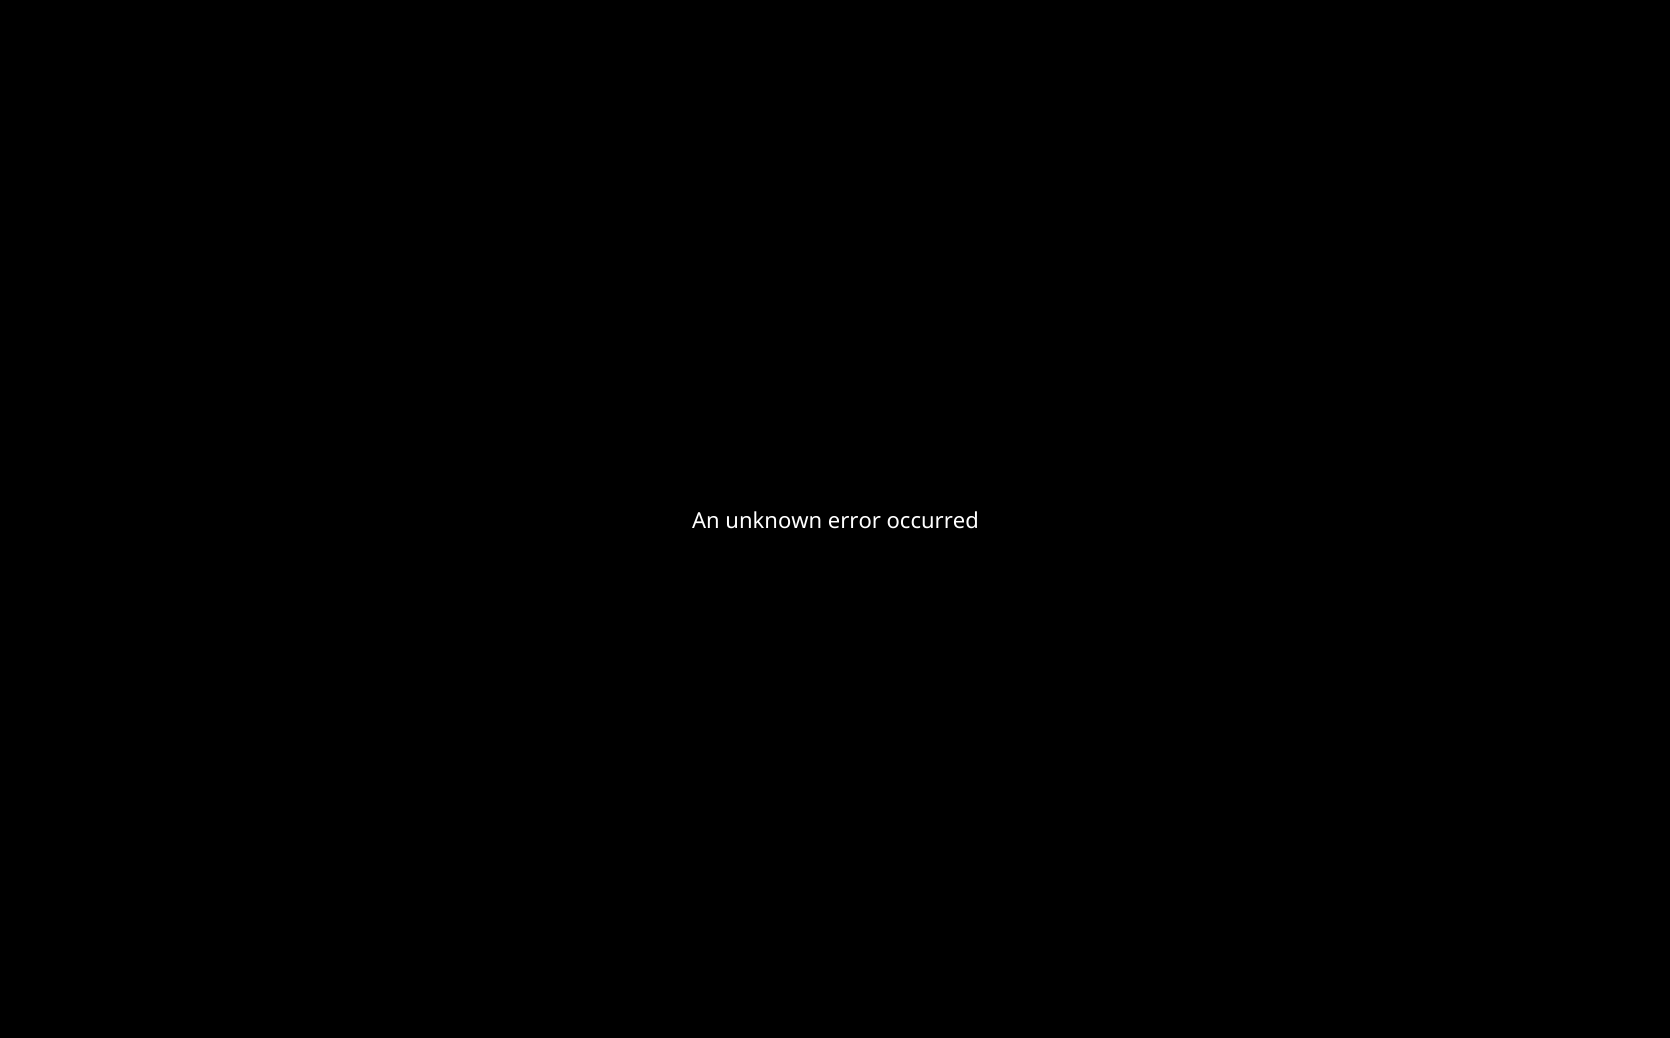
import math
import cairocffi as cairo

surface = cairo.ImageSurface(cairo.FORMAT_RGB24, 1670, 1038)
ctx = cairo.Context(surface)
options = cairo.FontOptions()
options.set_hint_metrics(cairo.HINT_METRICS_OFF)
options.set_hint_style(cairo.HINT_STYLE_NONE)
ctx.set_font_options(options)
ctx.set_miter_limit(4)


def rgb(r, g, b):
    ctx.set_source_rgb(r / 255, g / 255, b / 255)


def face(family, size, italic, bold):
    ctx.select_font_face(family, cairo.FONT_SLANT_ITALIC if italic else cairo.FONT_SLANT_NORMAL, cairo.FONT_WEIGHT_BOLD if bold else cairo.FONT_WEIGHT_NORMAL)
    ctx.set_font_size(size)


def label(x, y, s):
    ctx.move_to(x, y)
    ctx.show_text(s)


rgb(0, 0, 0)
ctx.paint()
face('Noto Sans', 22, 0, 0)
rgb(255, 255, 255)
label(692, 528, 'An unknown error occurred')
surface.write_to_png('render.png')
